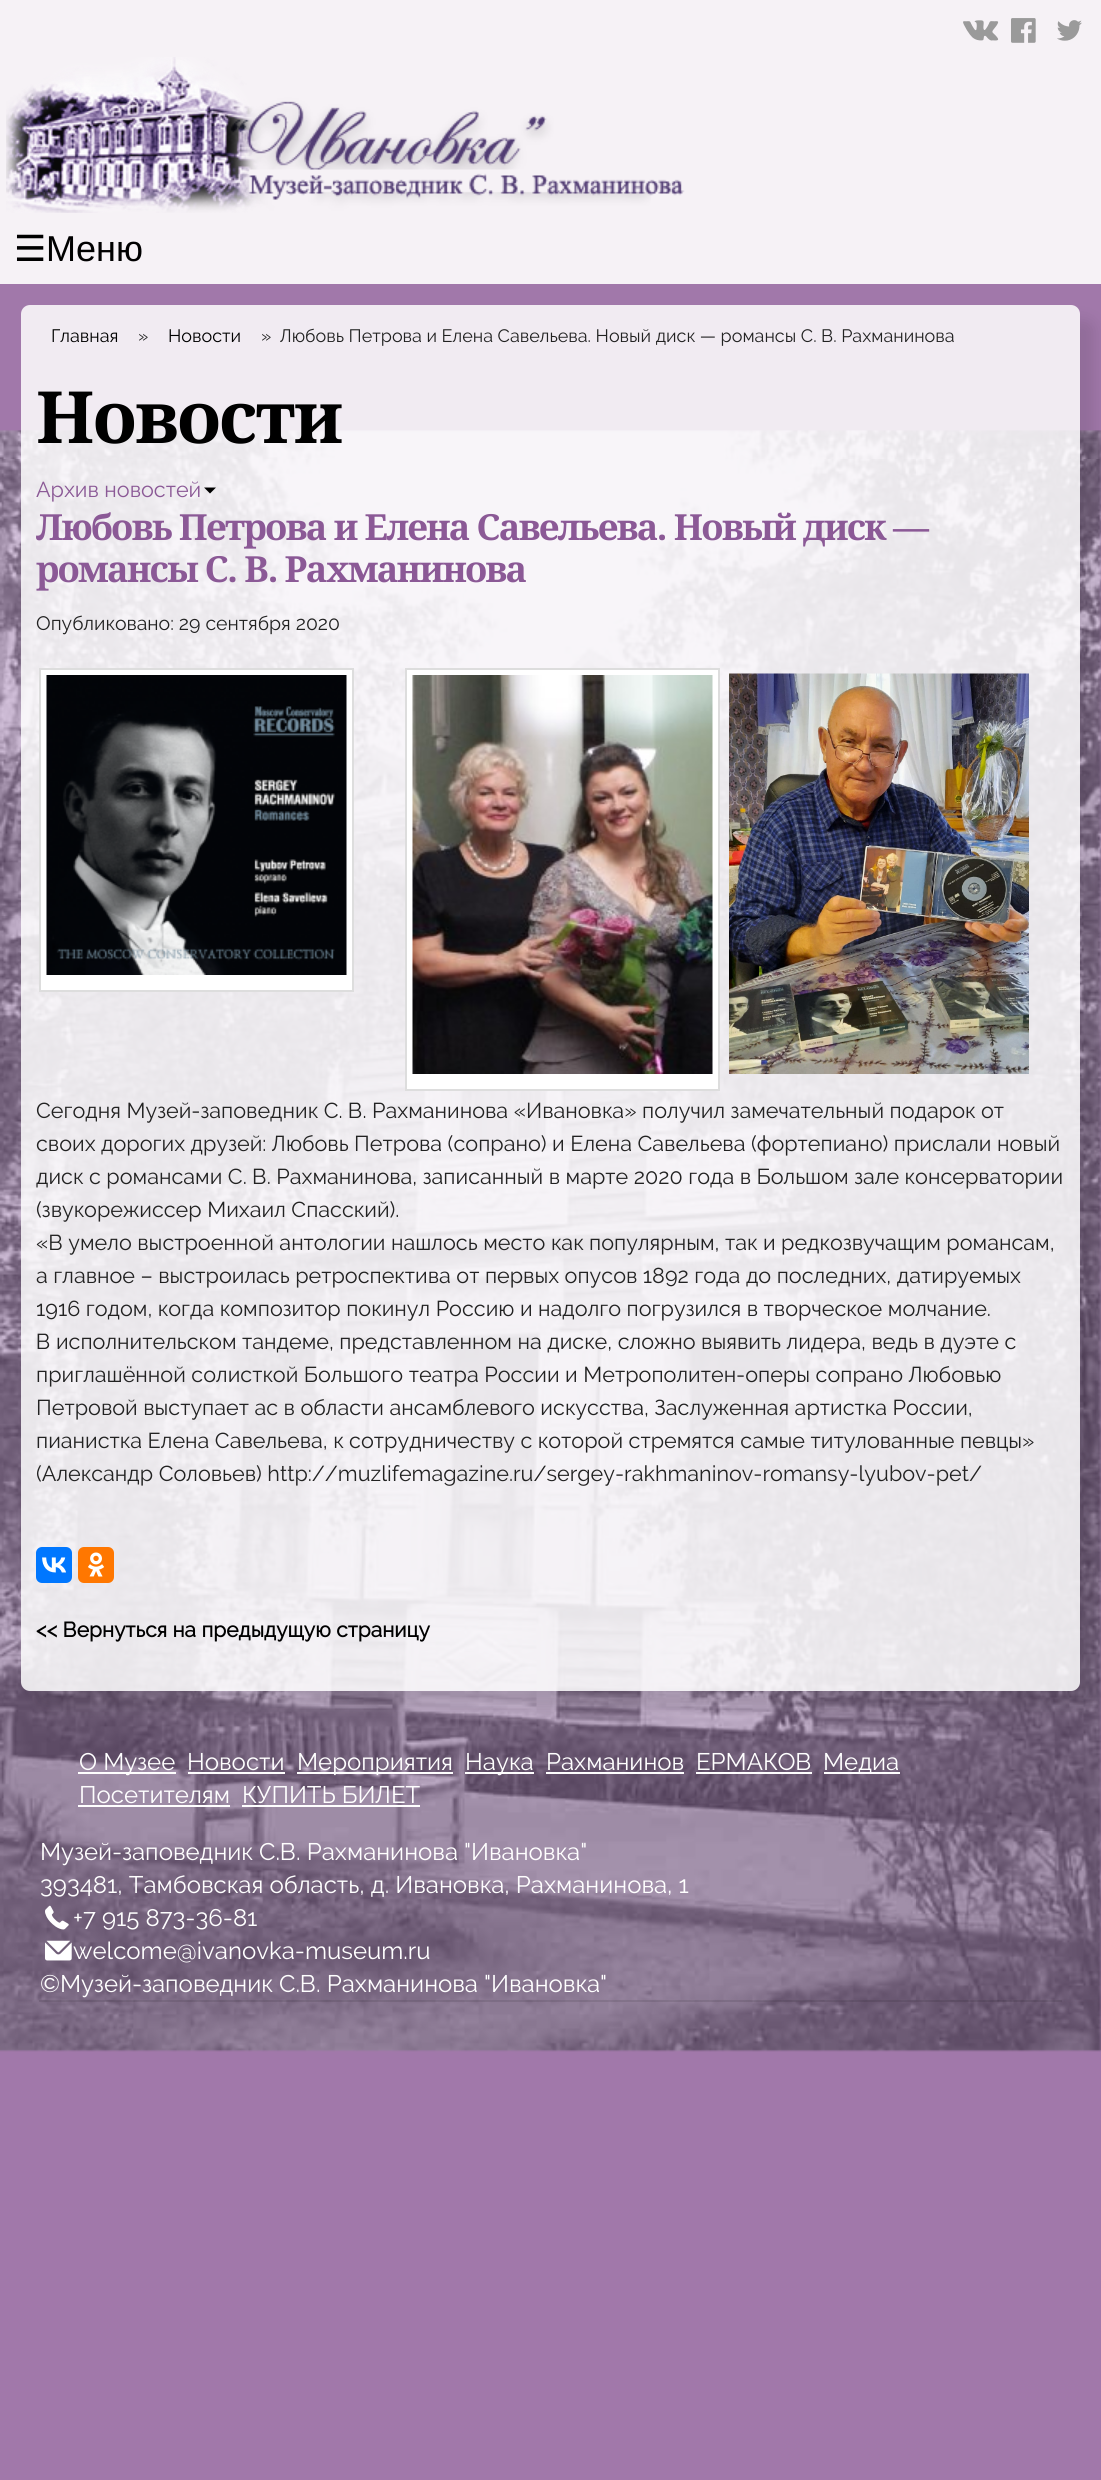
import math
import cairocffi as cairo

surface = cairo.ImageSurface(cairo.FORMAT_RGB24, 1101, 2480)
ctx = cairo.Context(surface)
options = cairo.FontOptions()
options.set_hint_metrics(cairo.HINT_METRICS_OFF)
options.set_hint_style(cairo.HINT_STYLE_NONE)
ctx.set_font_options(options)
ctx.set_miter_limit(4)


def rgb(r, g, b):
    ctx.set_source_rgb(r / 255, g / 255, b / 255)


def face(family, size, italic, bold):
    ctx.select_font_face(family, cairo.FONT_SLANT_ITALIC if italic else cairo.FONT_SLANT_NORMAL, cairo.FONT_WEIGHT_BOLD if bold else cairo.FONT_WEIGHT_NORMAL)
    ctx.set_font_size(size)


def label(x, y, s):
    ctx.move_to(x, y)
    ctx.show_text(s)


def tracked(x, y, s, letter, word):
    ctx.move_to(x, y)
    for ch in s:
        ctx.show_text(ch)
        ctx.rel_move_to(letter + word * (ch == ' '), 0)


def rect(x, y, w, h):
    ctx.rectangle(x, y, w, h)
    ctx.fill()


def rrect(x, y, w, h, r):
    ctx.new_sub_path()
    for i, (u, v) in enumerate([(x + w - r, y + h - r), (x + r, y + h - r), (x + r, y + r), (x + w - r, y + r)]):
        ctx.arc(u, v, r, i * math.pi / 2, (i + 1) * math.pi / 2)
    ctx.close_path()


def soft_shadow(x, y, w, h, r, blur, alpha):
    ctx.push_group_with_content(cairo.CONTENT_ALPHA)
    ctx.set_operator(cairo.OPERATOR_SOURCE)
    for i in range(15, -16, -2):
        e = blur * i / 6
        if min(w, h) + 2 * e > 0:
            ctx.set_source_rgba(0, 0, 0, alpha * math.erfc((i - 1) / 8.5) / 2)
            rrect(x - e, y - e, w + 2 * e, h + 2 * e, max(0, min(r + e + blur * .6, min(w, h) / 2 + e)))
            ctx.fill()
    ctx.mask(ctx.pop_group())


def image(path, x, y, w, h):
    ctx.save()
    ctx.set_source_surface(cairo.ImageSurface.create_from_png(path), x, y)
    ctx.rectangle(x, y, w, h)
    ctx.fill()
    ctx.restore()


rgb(161, 120, 170)
ctx.paint()
image('image0.png', 0, 430, 1101, 1622)
rgb(246, 242, 246)
rect(0, 0, 1101, 284)
image('image1.png', 963, 20, 36, 21)
image('image2.png', 1011, 18, 25, 25)
image('image3.png', 1057, 20, 25, 21)
image('image4.png', 6, 57, 679, 156)
face('DejaVu Sans', 36, 0, 0)
rgb(0, 0, 0)
label(14, 261, '☰')
face('Liberation Sans', 36, 0, 0)
label(46, 261, 'Меню')
ctx.save()
ctx.set_fill_rule(cairo.FILL_RULE_EVEN_ODD)
ctx.new_path()
ctx.move_to(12, 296)
ctx.line_to(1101, 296)
ctx.line_to(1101, 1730)
ctx.line_to(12, 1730)
ctx.close_path()
ctx.move_to(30, 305)
ctx.line_to(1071, 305)
ctx.curve_to(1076, 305, 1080, 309, 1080, 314)
ctx.line_to(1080, 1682)
ctx.curve_to(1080, 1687, 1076, 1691, 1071, 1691)
ctx.line_to(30, 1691)
ctx.curve_to(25, 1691, 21, 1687, 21, 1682)
ctx.line_to(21, 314)
ctx.curve_to(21, 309, 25, 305, 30, 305)
ctx.close_path()
ctx.clip()
rgb(0, 0, 0)
soft_shadow(36, 320, 1059, 1386, 9, 7.5, 0.1)
ctx.restore()
ctx.set_source_rgba(1, 1, 1, 0.85)
rrect(21, 305, 1059, 1386, 9)
ctx.fill()
face('Raleway', 18, 0, 0)
rgb(0, 0, 0)
label(51, 342, 'Главная')
rgb(34, 34, 34)
label(138, 342, '»')
rgb(0, 0, 0)
label(168, 342, 'Новости')
rgb(34, 34, 34)
label(261, 342, '»')
label(280, 342, 'Любовь Петрова и Елена Савельева. Новый диск — романсы С. В. Рахманинова')
face('Noto Serif', 72, 0, 1)
rgb(0, 0, 0)
tracked(36, 443, 'Новости', -1.5, 0)
face('Raleway', 21.6, 0, 0)
rgb(139, 89, 150)
label(36, 497, 'Архив новостей')
rgb(0, 0, 0)
ctx.new_path()
ctx.move_to(204, 487.5)
ctx.line_to(216, 487.5)
ctx.line_to(210, 493.5)
ctx.close_path()
ctx.fill()
face('Noto Serif', 36, 0, 1)
rgb(139, 89, 150)
tracked(36, 540, 'Любовь Петрова и Елена Савельева. Новый диск —', -1.5, 0)
tracked(36, 582, 'романсы С. В. Рахманинова', -1.5, 0)
face('Raleway', 19.5, 0, 0)
rgb(34, 34, 34)
label(36, 630, 'Опубликовано: 29 сентября 2020')
rgb(255, 255, 255)
ctx.rectangle(40, 669, 313, 322)
ctx.fill_preserve()
rgb(221, 221, 221)
ctx.stroke()
image('image5.png', 46, 675, 301, 300)
rgb(255, 255, 255)
ctx.rectangle(406, 669, 313, 421)
ctx.fill_preserve()
rgb(221, 221, 221)
ctx.stroke()
image('image6.png', 412, 675, 301, 399)
image('image7.png', 729, 673, 300, 401)
face('Raleway', 21.6, 0, 0)
rgb(34, 34, 34)
label(36, 1118, 'Сегодня Музей-заповедник С. В. Рахманинова «Ивановка» получил замечательный подарок от')
label(36, 1151, 'своих дорогих друзей: Любовь Петрова (сопрано) и Елена Савельева (фортепиано) прислали новый')
label(36, 1184, 'диск с романсами С. В. Рахманинова, записанный в марте 2020 года в Большом зале консерватории')
label(36, 1217, '(звукорежиссер Михаил Спасский).')
label(36, 1250, '«В умело выстроенной антологии нашлось место как популярным, так и редкозвучащим романсам,')
label(36, 1283, 'а главное – выстроилась ретроспектива от первых опусов 1892 года до последних, датируемых')
label(36, 1316, '1916 годом, когда композитор покинул Россию и надолго погрузился в творческое молчание.')
label(36, 1349, 'В исполнительском тандеме, представленном на диске, сложно выявить лидера, ведь в дуэте с')
label(36, 1382, 'приглашённой солисткой Большого театра России и Метрополитен-оперы сопрано Любовью')
label(36, 1415, 'Петровой выступает ас в области ансамблевого искусства, Заслуженная артистка России,')
label(36, 1448, 'пианистка Елена Савельева, к сотрудничеству с которой стремятся самые титулованные певцы»')
label(36, 1481, '(Александр Соловьев) http://muzlifemagazine.ru/sergey-rakhmaninov-romansy-lyubov-pet/')
rgb(0, 119, 255)
rrect(36, 1547, 36, 36, 6)
ctx.fill()
image('image8.png', 42, 1557, 24, 16)
rgb(255, 119, 0)
rrect(78, 1547, 36, 36, 6)
ctx.fill()
image('image9.png', 88, 1552, 16, 25)
face('Raleway', 21, 0, 1)
rgb(0, 0, 0)
label(36, 1637, '<< Вернуться на предыдущую страницу')
rgb(255, 255, 255)
rect(78, 1772, 98, 2)
face('Raleway', 24, 0, 0)
label(79, 1770, 'О Музее')
label(187, 1770, 'Новости')
rect(188, 1772, 97, 2)
rect(297, 1772, 156, 2)
label(297, 1770, 'Мероприятия')
rect(465, 1772, 69, 2)
label(465, 1770, 'Наука')
label(546, 1770, 'Рахманинов')
rect(546, 1772, 138, 2)
label(696, 1770, 'ЕРМАКОВ')
rect(696, 1772, 116, 2)
rect(824, 1772, 76, 2)
label(823, 1770, 'Медиа')
label(79, 1803, 'Посетителям')
rect(78, 1805, 152, 2)
label(242, 1803, 'КУПИТЬ БИЛЕТ')
rect(242, 1805, 178, 2)
label(40, 1860, 'Музей-заповедник С.В. Рахманинова "Ивановка"')
label(40, 1893, '393481, Тамбовская область, д. Ивановка, Рахманинова, 1')
image('image10.png', 45, 1905, 24, 25)
label(73, 1926, '+7 915 873-36-81')
image('image11.png', 45, 1940, 27, 21)
label(73, 1959, 'welcome@ivanovka-museum.ru')
label(40, 1992, '©Музей-заповедник С.В. Рахманинова "Ивановка"')
ctx.set_source_rgba(0, 0, 0, 0.1)
rect(39, 2000, 1023, 2)
surface.write_to_png('render.png')
